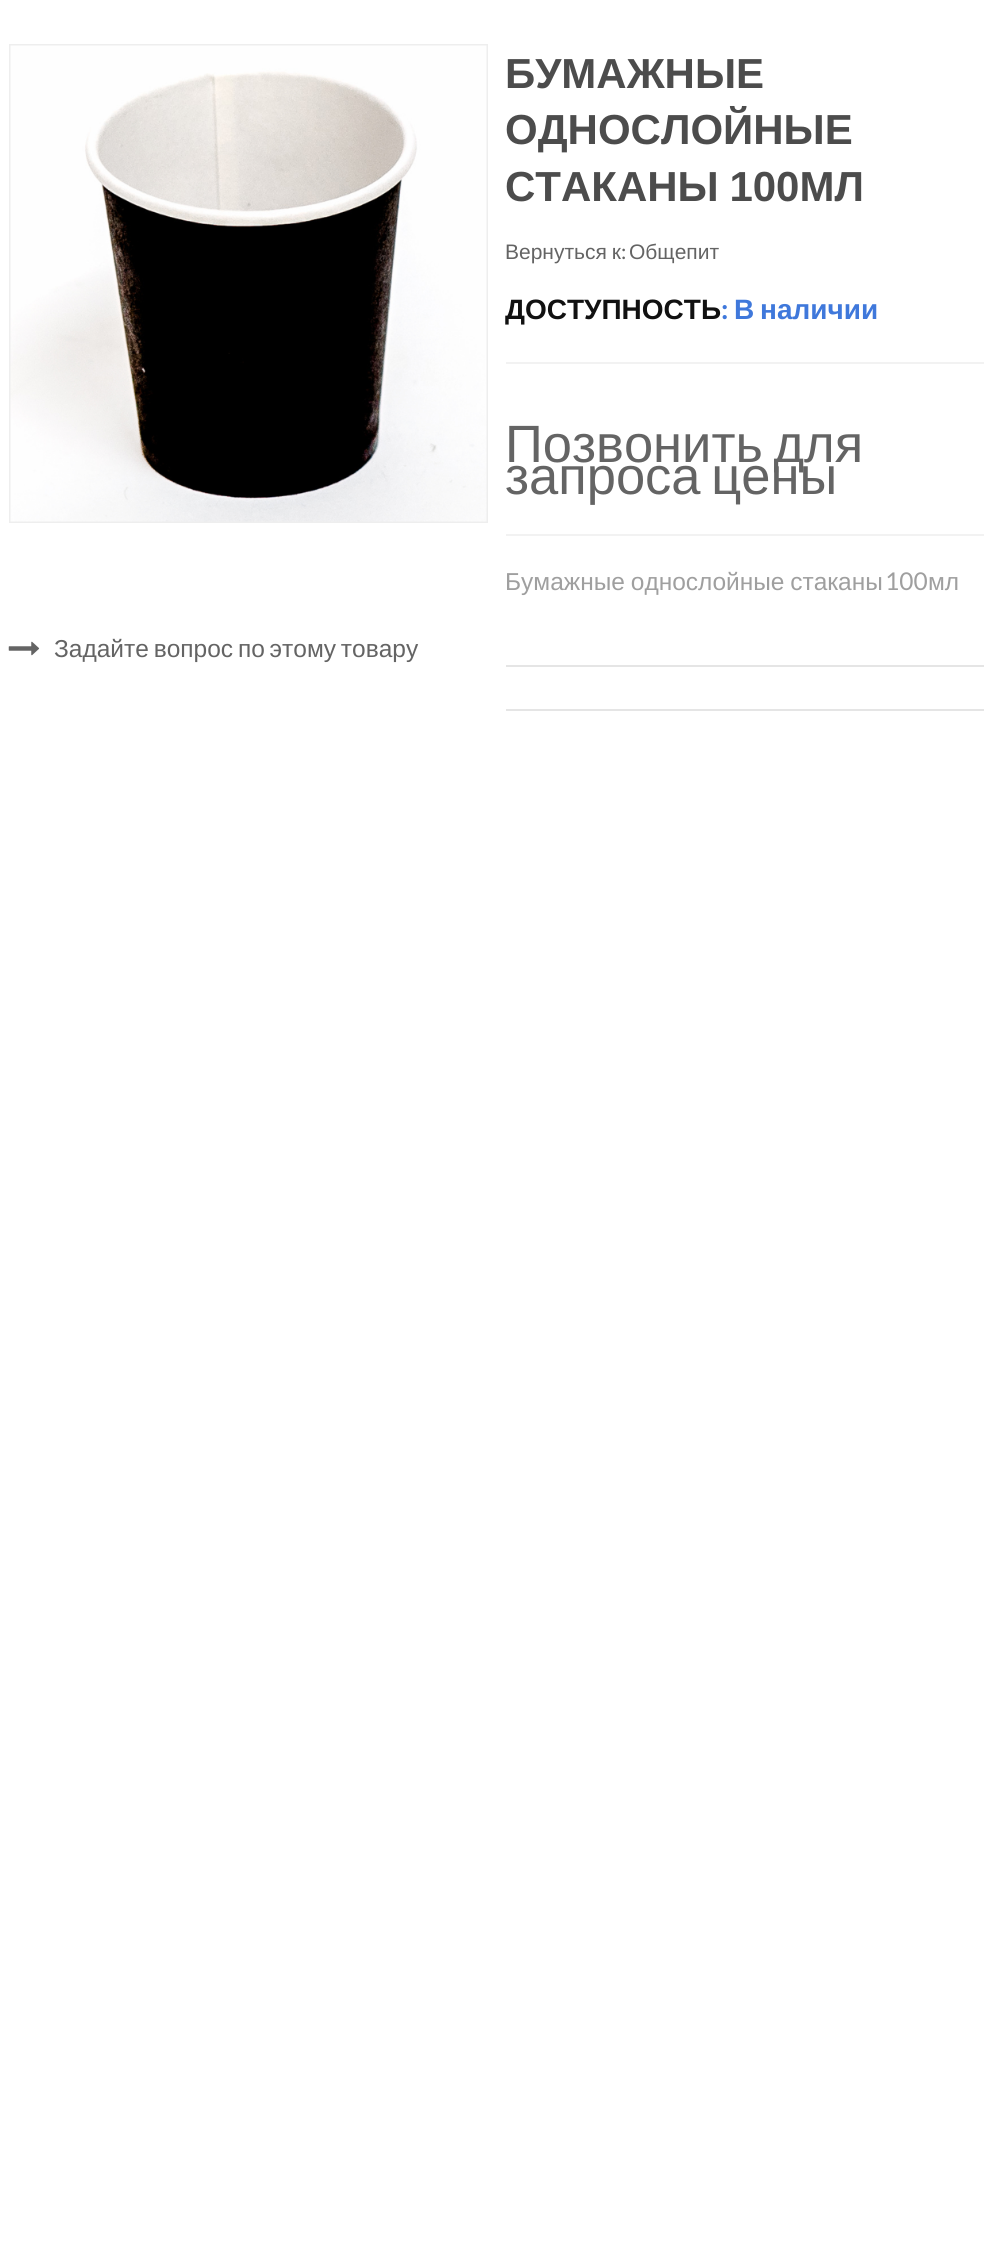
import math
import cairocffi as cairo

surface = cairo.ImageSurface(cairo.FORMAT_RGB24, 992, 2255)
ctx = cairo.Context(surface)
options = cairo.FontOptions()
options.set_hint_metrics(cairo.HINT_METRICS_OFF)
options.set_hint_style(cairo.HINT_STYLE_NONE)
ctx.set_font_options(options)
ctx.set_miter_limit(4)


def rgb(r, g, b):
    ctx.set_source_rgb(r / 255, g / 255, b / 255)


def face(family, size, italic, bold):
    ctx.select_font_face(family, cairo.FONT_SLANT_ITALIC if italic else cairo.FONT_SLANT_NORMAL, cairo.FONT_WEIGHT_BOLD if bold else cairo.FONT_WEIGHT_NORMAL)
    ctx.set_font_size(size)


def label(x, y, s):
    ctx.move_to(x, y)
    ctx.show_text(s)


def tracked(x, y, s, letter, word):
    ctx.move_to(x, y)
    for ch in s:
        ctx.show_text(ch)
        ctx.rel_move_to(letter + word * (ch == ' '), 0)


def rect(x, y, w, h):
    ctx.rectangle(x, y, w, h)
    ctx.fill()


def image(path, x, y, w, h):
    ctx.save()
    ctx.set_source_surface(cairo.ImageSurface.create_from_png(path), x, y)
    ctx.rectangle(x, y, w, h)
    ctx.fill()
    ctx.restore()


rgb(255, 255, 255)
ctx.paint()
face('Liberation Sans', 42, 0, 1)
rgb(76, 76, 76)
label(505, 88, 'БУМАЖНЫЕ')
label(505, 144, 'ОДНОСЛОЙНЫЕ')
tracked(505, 201, 'СТАКАНЫ 100МЛ', 0, -1)
face('Liberation Sans', 21, 0, 0)
rgb(100, 100, 100)
tracked(505, 259, 'Вернуться к', 0, -1)
face('Lato', 21, 0, 0)
label(621, 259, ':')
face('Liberation Sans', 21, 0, 0)
label(629, 259, 'Общепит')
face('Liberation Sans', 28, 0, 1)
rgb(17, 17, 17)
label(505, 319, 'ДОСТУПНОСТЬ')
face('Lato', 28, 0, 1)
rgb(63, 120, 219)
label(721, 319, ':')
face('Liberation Sans', 28, 0, 1)
tracked(734, 319, 'В наличии', 0, -2)
rgb(242, 242, 242)
rect(506, 362, 478, 2)
face('Liberation Sans', 52.5, 0, 0)
rgb(100, 100, 100)
tracked(505, 462, 'Позвонить для', 0, -4)
tracked(505, 494, 'запроса цены', 0, -4)
rgb(242, 242, 242)
rect(506, 534, 478, 2)
face('Liberation Sans', 24.5, 0, 0)
rgb(159, 159, 159)
tracked(505, 590, 'Бумажные однослойные стаканы', 0, -1)
face('Lato', 24.5, 0, 0)
label(885, 590, '100')
face('Liberation Sans', 24.5, 0, 0)
label(928, 590, 'мл')
rgb(229, 229, 229)
rect(506, 665, 478, 2)
rect(506, 709, 478, 2)
ctx.rectangle(10, 45, 477, 477)
rgb(238, 238, 238)
ctx.stroke()
image('image0.png', 10, 45, 477, 477)
image('image1.png', 8, 641, 32, 15)
rgb(100, 100, 100)
tracked(54, 657, 'Задайте вопрос по этому товару', 0, -2)
surface.write_to_png('render.png')
